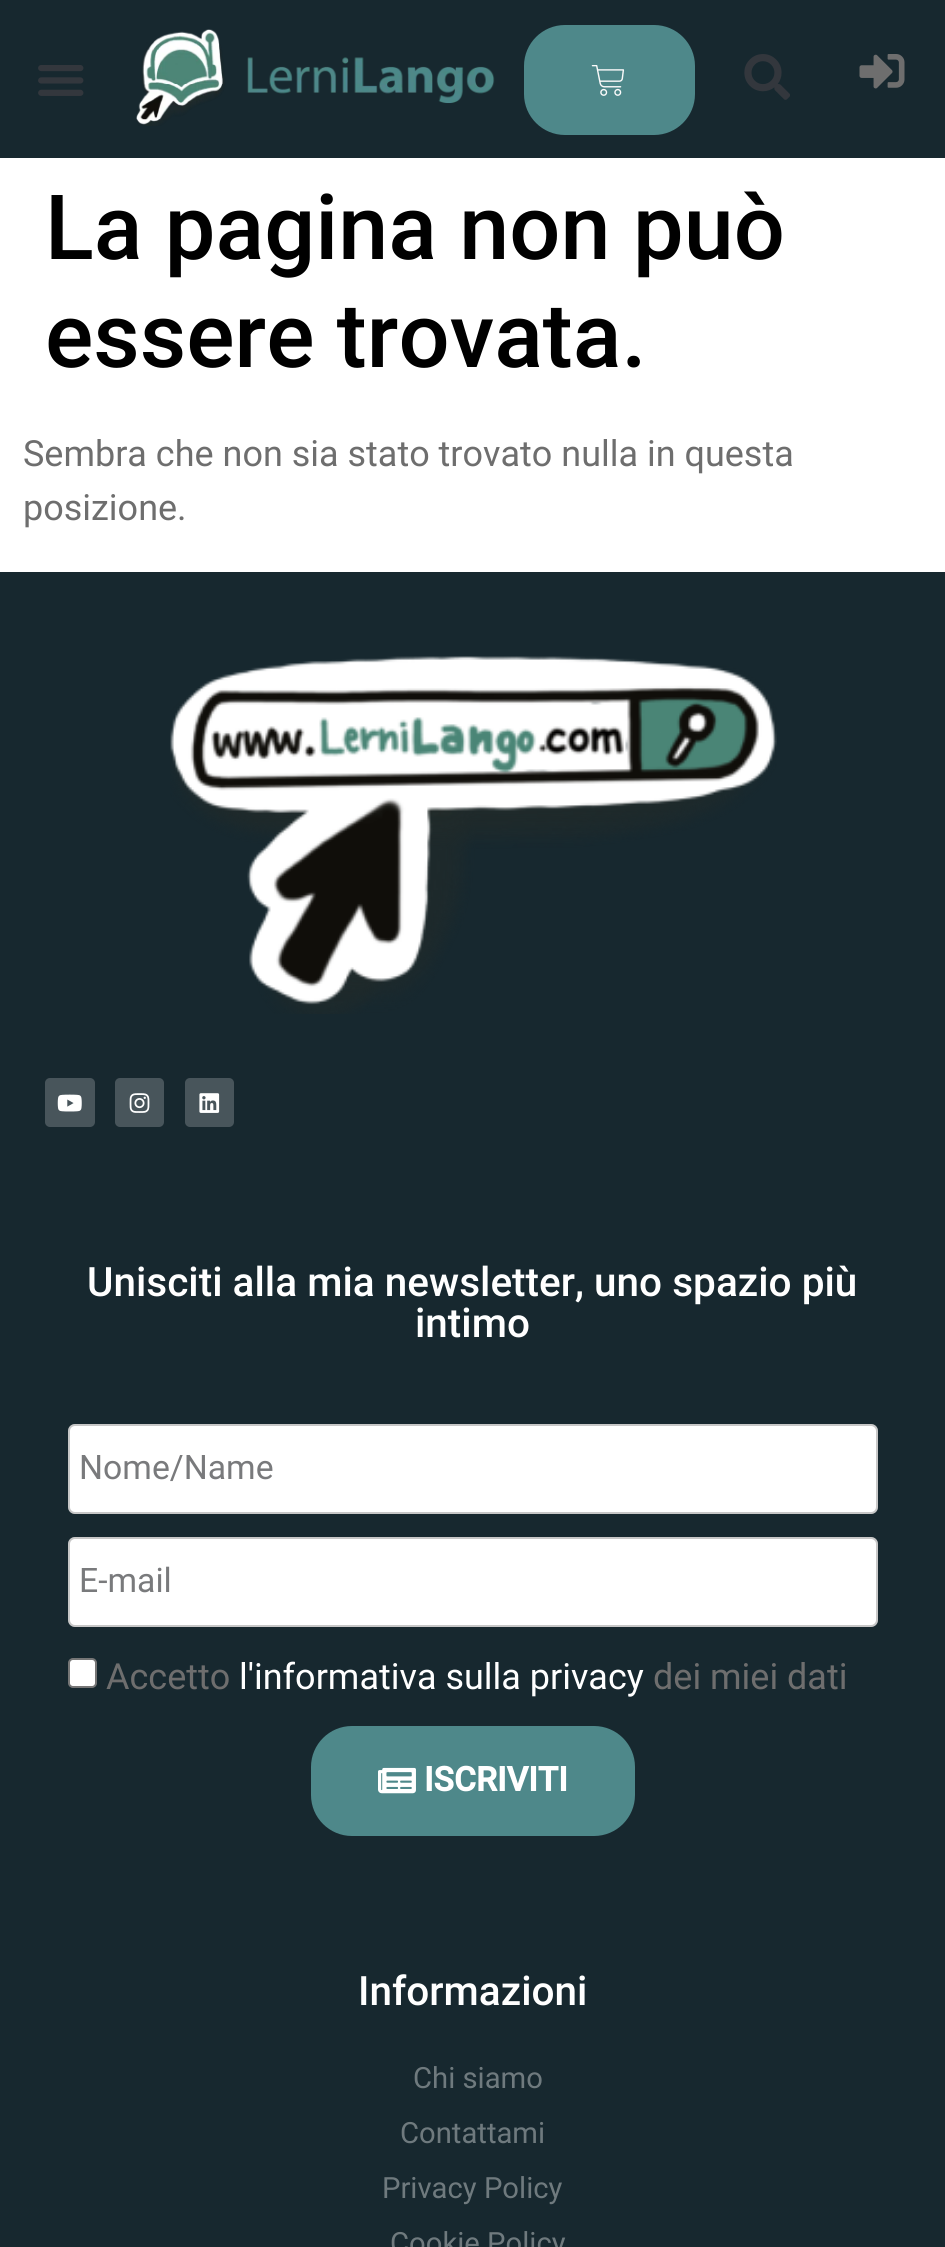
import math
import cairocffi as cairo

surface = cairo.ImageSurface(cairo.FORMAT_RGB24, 945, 2247)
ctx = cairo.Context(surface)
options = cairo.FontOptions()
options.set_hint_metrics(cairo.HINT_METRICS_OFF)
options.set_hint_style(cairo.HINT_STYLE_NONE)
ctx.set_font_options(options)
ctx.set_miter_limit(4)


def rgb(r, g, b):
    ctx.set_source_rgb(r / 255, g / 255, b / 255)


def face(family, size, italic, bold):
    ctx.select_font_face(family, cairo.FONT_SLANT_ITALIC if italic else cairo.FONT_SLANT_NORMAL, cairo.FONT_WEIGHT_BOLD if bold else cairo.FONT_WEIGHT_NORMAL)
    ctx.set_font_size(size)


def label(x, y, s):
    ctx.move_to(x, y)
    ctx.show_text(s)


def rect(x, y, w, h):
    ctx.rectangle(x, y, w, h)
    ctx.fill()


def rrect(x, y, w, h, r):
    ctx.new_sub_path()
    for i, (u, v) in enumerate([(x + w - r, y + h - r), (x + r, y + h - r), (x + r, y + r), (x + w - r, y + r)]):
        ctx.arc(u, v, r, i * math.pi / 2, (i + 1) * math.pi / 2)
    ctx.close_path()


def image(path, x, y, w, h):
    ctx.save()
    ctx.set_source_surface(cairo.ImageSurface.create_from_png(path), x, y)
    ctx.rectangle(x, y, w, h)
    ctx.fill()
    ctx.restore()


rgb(255, 255, 255)
ctx.paint()
rgb(23, 40, 47)
rect(0, 0, 945, 158)
image('image0.png', 38, 65, 46, 31)
image('image1.png', 136, 29, 359, 97)
rgb(78, 136, 138)
rrect(524, 25, 171, 110, 41)
ctx.fill()
image('image2.png', 591, 65, 34, 31)
image('image3.png', 744, 54, 46, 46)
image('image4.png', 859, 54, 46, 35)
face('Roboto Medium', 90, 0, 0)
rgb(0, 0, 0)
label(45, 259, 'La pagina non può')
label(45, 367, 'essere trovata.')
face('Roboto', 36, 0, 0)
rgb(110, 110, 110)
label(23, 466, 'Sembra che non sia stato trovato nulla in questa')
label(23, 520, 'posizione.')
rgb(23, 40, 47)
rect(0, 572, 945, 1675)
image('image5.png', 170, 656, 607, 358)
rgb(72, 85, 91)
rrect(45, 1078, 50, 49, 5)
ctx.fill()
image('image6.png', 57, 1094, 25, 18)
rrect(115, 1078, 49, 49, 5)
ctx.fill()
image('image7.png', 129, 1093, 21, 20)
rrect(185, 1078, 49, 49, 5)
ctx.fill()
image('image8.png', 199, 1093, 21, 20)
face('Roboto Medium', 40.5, 0, 0)
rgb(255, 255, 255)
label(87, 1296, 'Unisciti alla mia newsletter, uno spazio più')
label(415, 1337, 'intimo')
rrect(68, 1424, 810, 90, 7)
ctx.fill()
rrect(69, 1425, 808, 88, 6)
ctx.set_source_rgba(0, 0, 0, 0.22)
ctx.stroke()
face('Roboto', 33.75, 0, 0)
rgb(121, 122, 124)
label(79, 1479, 'Nome/Name')
rgb(255, 255, 255)
rrect(68, 1537, 810, 90, 7)
ctx.fill()
rrect(69, 1538, 808, 88, 6)
ctx.set_source_rgba(0, 0, 0, 0.22)
ctx.stroke()
rgb(121, 122, 124)
label(79, 1592, 'E-mail')
rgb(255, 255, 255)
rrect(69, 1659, 27, 28, 4)
ctx.fill_preserve()
rgb(118, 118, 118)
ctx.stroke()
face('Roboto', 36, 0, 0)
rgb(110, 110, 110)
label(106, 1689, 'Accetto')
rgb(255, 255, 255)
label(239, 1689, 'l\'informativa sulla privacy')
rgb(110, 110, 110)
label(653, 1689, 'dei miei dati')
rgb(78, 136, 138)
rrect(311, 1726, 324, 110, 41)
ctx.fill()
image('image9.png', 378, 1767, 38, 27)
face('Roboto', 33.75, 0, 1)
rgb(255, 255, 255)
label(424, 1791, 'ISCRIVITI')
face('Roboto Medium', 40.5, 0, 0)
label(358, 2005, 'Informazioni')
face('Roboto', 29.25, 0, 0)
rgb(111, 122, 126)
label(413, 2088, 'Chi siamo')
label(400, 2143, 'Contattami')
label(382, 2198, 'Privacy Policy')
label(390, 2253, 'Cookie Policy')
surface.write_to_png('render.png')
